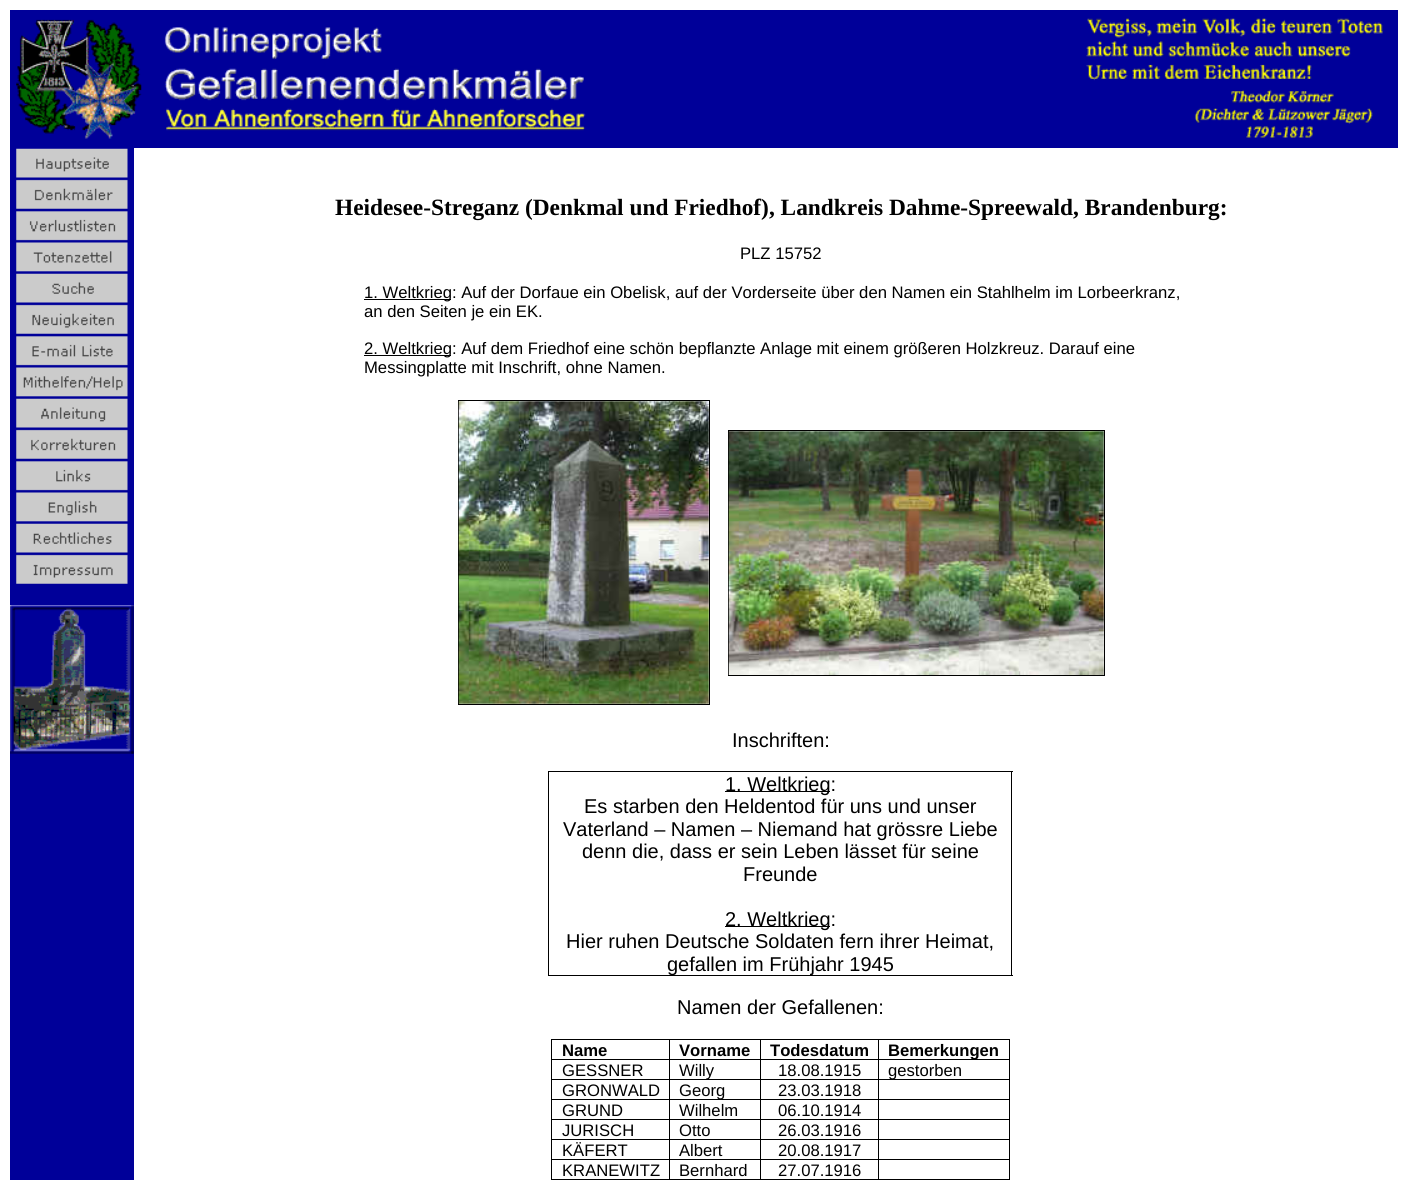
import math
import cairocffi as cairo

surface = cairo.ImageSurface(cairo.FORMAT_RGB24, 1407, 1180)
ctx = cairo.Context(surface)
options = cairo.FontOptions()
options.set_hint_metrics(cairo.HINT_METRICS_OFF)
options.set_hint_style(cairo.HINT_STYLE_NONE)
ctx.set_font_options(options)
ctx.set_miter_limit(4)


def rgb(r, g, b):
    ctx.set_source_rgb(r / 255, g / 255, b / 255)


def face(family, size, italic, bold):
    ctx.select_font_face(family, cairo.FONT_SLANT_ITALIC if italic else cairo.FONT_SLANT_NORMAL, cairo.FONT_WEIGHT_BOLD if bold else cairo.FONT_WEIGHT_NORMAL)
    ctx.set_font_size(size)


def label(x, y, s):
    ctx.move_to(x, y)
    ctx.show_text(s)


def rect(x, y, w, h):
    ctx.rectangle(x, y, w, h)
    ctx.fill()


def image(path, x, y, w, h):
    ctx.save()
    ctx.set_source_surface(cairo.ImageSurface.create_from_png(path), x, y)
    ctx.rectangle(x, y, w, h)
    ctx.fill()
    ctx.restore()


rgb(255, 255, 255)
ctx.paint()
rgb(0, 0, 153)
rect(10, 10, 1388, 138)
image('image0.png', 16, 19, 126, 120)
image('image1.png', 164, 27, 422, 104)
image('image2.png', 1086, 18, 297, 120)
rect(10, 148, 124, 1032)
image('image3.png', 16, 148, 112, 30)
image('image4.png', 16, 179, 112, 30)
image('image5.png', 16, 211, 112, 30)
image('image6.png', 16, 242, 112, 30)
image('image7.png', 16, 273, 112, 30)
image('image8.png', 16, 304, 112, 30)
image('image9.png', 16, 336, 112, 30)
image('image10.png', 16, 367, 112, 30)
image('image11.png', 16, 398, 112, 30)
image('image12.png', 16, 429, 112, 30)
image('image13.png', 16, 461, 112, 30)
image('image14.png', 16, 492, 112, 30)
image('image15.png', 16, 523, 112, 30)
image('image16.png', 16, 554, 112, 30)
image('image17.png', 10, 605, 124, 149)
face('Liberation Serif', 23.35, 0, 1)
rgb(0, 0, 0)
label(335, 215, 'Heidesee-Streganz (Denkmal und Friedhof), Landkreis Dahme-Spreewald, Brandenburg:')
face('Liberation Sans', 16.65, 0, 0)
label(740, 259, 'PLZ 15752')
rect(364, 299, 87, 1)
label(364, 298, '1. Weltkrieg: Auf der Dorfaue ein Obelisk, auf der Vorderseite über den Namen ein Stahlhelm im Lorbeerkranz,')
label(364, 317, 'an den Seiten je ein EK.')
rect(364, 355, 87, 1)
label(364, 354, '2. Weltkrieg: Auf dem Friedhof eine schön bepflanzte Anlage mit einem größeren Holzkreuz. Darauf eine')
label(364, 373, 'Messingplatte mit Inschrift, ohne Namen.')
ctx.rectangle(458.5, 400.5, 251, 304)
ctx.set_line_width(1)
ctx.stroke()
image('image18.png', 458, 401, 251, 303)
ctx.rectangle(728.5, 430.5, 376, 245)
ctx.stroke()
image('image19.png', 728, 431, 376, 244)
face('Liberation Sans', 20, 0, 0)
label(732, 747, 'Inschriften:')
rect(548, 771, 465, 1)
rect(1011, 771, 1, 205)
rect(548, 975, 465, 1)
rect(548, 771, 1, 205)
rect(725, 791, 105, 1)
label(725, 791, '1. Weltkrieg:')
label(584, 813, 'Es starben den Heldentod für uns und unser')
label(563, 836, 'Vaterland – Namen – Niemand hat grössre Liebe')
label(582, 858, 'denn die, dass er sein Leben lässet für seine')
label(743, 881, 'Freunde')
rect(725, 926, 105, 1)
label(725, 926, '2. Weltkrieg:')
label(566, 948, 'Hier ruhen Deutsche Soldaten fern ihrer Heimat,')
label(667, 971, 'gefallen im Frühjahr 1945')
label(677, 1014, 'Namen der Gefallenen:')
rect(551, 1039, 459, 1)
rect(1009, 1059, 1, 121)
rect(1009, 1039, 1, 21)
rect(878, 1179, 132, 1)
rect(878, 1159, 1, 21)
rect(878, 1159, 132, 1)
rect(878, 1139, 1, 21)
rect(878, 1139, 132, 1)
rect(878, 1119, 1, 21)
rect(878, 1119, 132, 1)
rect(878, 1099, 1, 21)
rect(878, 1099, 132, 1)
rect(878, 1079, 1, 21)
rect(878, 1079, 132, 1)
rect(878, 1059, 1, 21)
rect(878, 1059, 132, 1)
rect(878, 1039, 1, 21)
rect(760, 1179, 119, 1)
rect(760, 1159, 1, 21)
rect(760, 1159, 119, 1)
rect(760, 1139, 1, 21)
rect(760, 1139, 119, 1)
rect(760, 1119, 1, 21)
rect(760, 1119, 119, 1)
rect(760, 1099, 1, 21)
rect(760, 1099, 119, 1)
rect(760, 1079, 1, 21)
rect(760, 1079, 119, 1)
rect(760, 1059, 1, 21)
rect(760, 1059, 119, 1)
rect(760, 1039, 1, 21)
rect(669, 1179, 92, 1)
rect(669, 1159, 1, 21)
rect(669, 1159, 92, 1)
rect(669, 1139, 1, 21)
rect(669, 1139, 92, 1)
rect(669, 1119, 1, 21)
rect(669, 1119, 92, 1)
rect(669, 1099, 1, 21)
rect(669, 1099, 92, 1)
rect(669, 1079, 1, 21)
rect(669, 1079, 92, 1)
rect(669, 1059, 1, 21)
rect(669, 1059, 92, 1)
rect(669, 1039, 1, 21)
rect(551, 1179, 119, 1)
rect(551, 1159, 1, 21)
rect(551, 1159, 119, 1)
rect(551, 1139, 1, 21)
rect(551, 1139, 119, 1)
rect(551, 1119, 1, 21)
rect(551, 1119, 119, 1)
rect(551, 1099, 1, 21)
rect(551, 1099, 119, 1)
rect(551, 1079, 1, 21)
rect(551, 1079, 119, 1)
rect(551, 1059, 1, 21)
rect(551, 1059, 119, 1)
rect(551, 1039, 1, 21)
face('Liberation Sans', 16.65, 0, 1)
label(562, 1056, 'Name')
label(679, 1056, 'Vorname')
label(770, 1056, 'Todesdatum')
label(888, 1056, 'Bemerkungen')
face('Liberation Sans', 16.65, 0, 0)
label(562, 1076, 'GESSNER')
label(679, 1076, 'Willy')
label(778, 1076, '18.08.1915')
label(888, 1076, 'gestorben')
label(562, 1096, 'GRONWALD')
label(679, 1096, 'Georg')
label(778, 1096, '23.03.1918')
label(562, 1116, 'GRUND')
label(679, 1116, 'Wilhelm')
label(778, 1116, '06.10.1914')
label(562, 1136, 'JURISCH')
label(679, 1136, 'Otto')
label(778, 1136, '26.03.1916')
label(562, 1156, 'KÄFERT')
label(679, 1156, 'Albert')
label(778, 1156, '20.08.1917')
label(562, 1176, 'KRANEWITZ')
label(679, 1176, 'Bernhard')
label(778, 1176, '27.07.1916')
surface.write_to_png('render.png')
